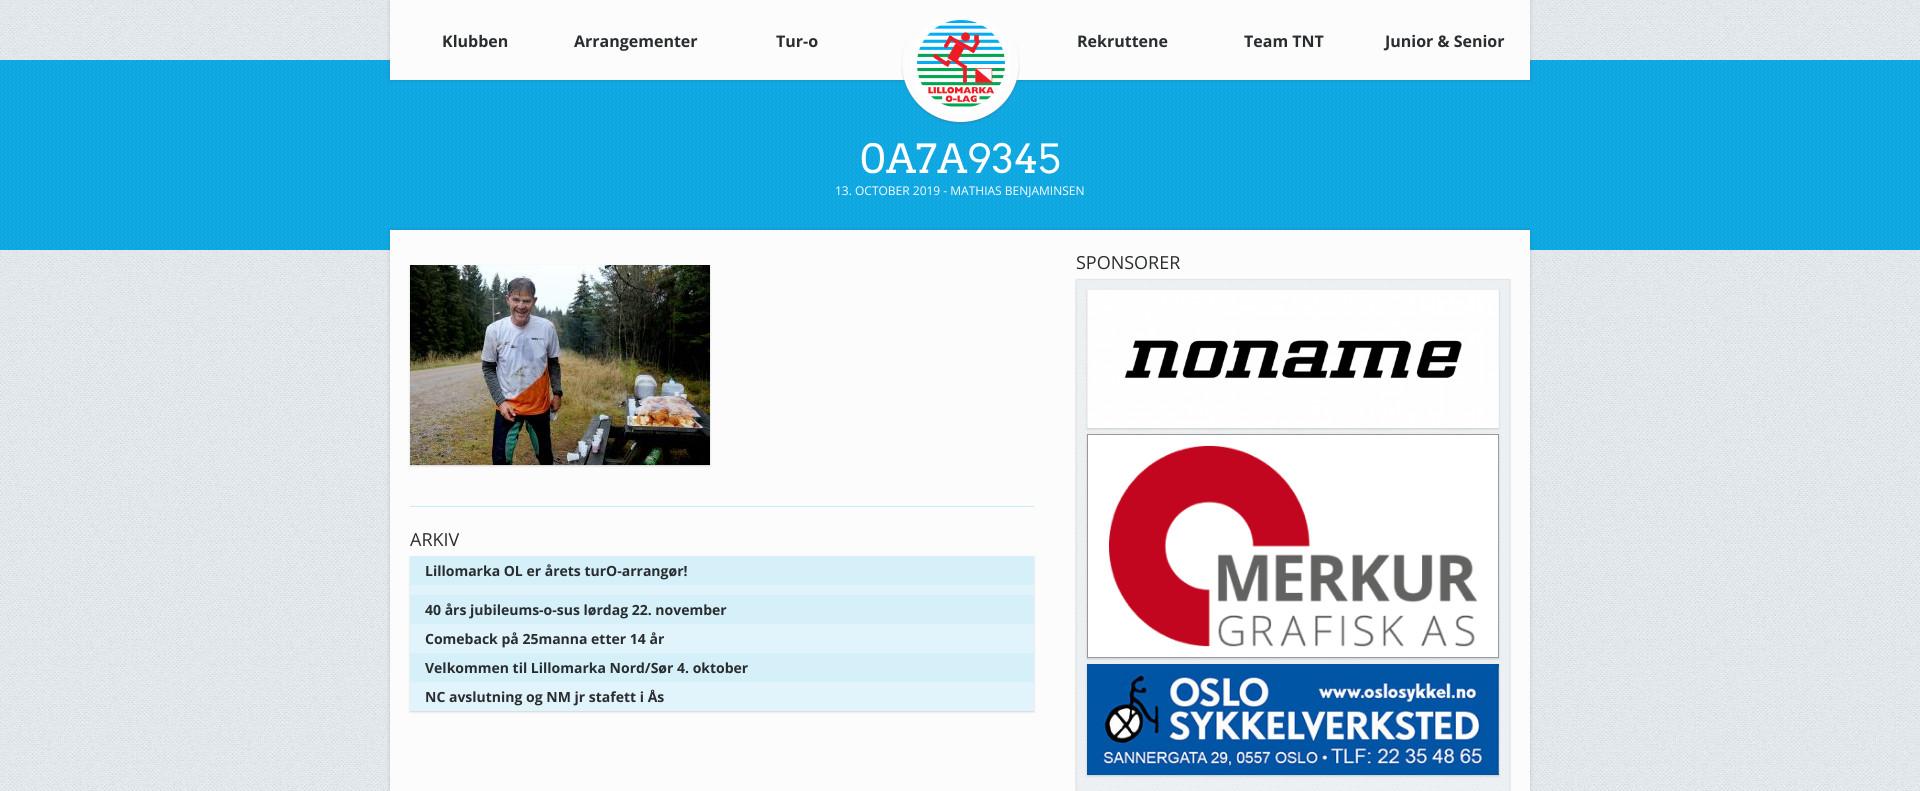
import math
import cairocffi as cairo

surface = cairo.ImageSurface(cairo.FORMAT_RGB24, 1920, 791)
ctx = cairo.Context(surface)
options = cairo.FontOptions()
options.set_hint_metrics(cairo.HINT_METRICS_OFF)
options.set_hint_style(cairo.HINT_STYLE_NONE)
ctx.set_font_options(options)
ctx.set_miter_limit(4)


def rgb(r, g, b):
    ctx.set_source_rgb(r / 255, g / 255, b / 255)


def face(family, size, italic, bold):
    ctx.select_font_face(family, cairo.FONT_SLANT_ITALIC if italic else cairo.FONT_SLANT_NORMAL, cairo.FONT_WEIGHT_BOLD if bold else cairo.FONT_WEIGHT_NORMAL)
    ctx.set_font_size(size)


def label(x, y, s):
    ctx.move_to(x, y)
    ctx.show_text(s)


def rect(x, y, w, h):
    ctx.rectangle(x, y, w, h)
    ctx.fill()


def rrect(x, y, w, h, r):
    ctx.new_sub_path()
    for i, (u, v) in enumerate([(x + w - r, y + h - r), (x + r, y + h - r), (x + r, y + r), (x + w - r, y + r)]):
        ctx.arc(u, v, r, i * math.pi / 2, (i + 1) * math.pi / 2)
    ctx.close_path()


def soft_shadow(x, y, w, h, r, blur, alpha):
    ctx.push_group_with_content(cairo.CONTENT_ALPHA)
    ctx.set_operator(cairo.OPERATOR_SOURCE)
    for i in range(15, -16, -2):
        e = blur * i / 6
        if min(w, h) + 2 * e > 0:
            ctx.set_source_rgba(0, 0, 0, alpha * math.erfc((i - 1) / 8.5) / 2)
            rrect(x - e, y - e, w + 2 * e, h + 2 * e, max(0, min(r + e + blur * .6, min(w, h) / 2 + e)))
            ctx.fill()
    ctx.mask(ctx.pop_group())


def image(path, x, y, w, h):
    ctx.save()
    ctx.set_source_surface(cairo.ImageSurface.create_from_png(path), x, y)
    ctx.rectangle(x, y, w, h)
    ctx.fill()
    ctx.restore()


rgb(255, 255, 255)
ctx.paint()
image('image0.png', 0, 0, 1920, 791)
image('image2.png', 0, 60, 1920, 190)
rgb(40, 42, 44)
soft_shadow(390, 0, 1140, 80, 0, 2, 0.2)
rgb(252, 252, 252)
rect(390, 0, 1140, 80)
image('image1.png', 901, 20, 119, 105)
face('Open Sans', 16, 0, 1)
rgb(41, 45, 47)
label(442, 47, 'Klubben')
label(574, 47, 'Arrangementer')
label(776, 47, 'Tur-o')
label(1077, 47, 'Rekruttene')
label(1244, 47, 'Team TNT')
label(1385, 47, 'Junior & Senior')
face('Arvo', 40, 0, 0)
rgb(255, 255, 255)
label(860, 173, '0A7A9345')
face('Open Sans', 12, 0, 0)
label(835, 195, '13. OCTOBER 2019 - MATHIAS BENJAMINSEN')
rgb(40, 42, 44)
soft_shadow(390, 230, 1140, 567, 0, 2, 0.2)
rgb(252, 252, 252)
rect(390, 230, 1140, 561)
face('Open Sans', 18, 0, 0)
rgb(41, 45, 47)
label(1076, 269, 'SPONSORER')
rgb(174, 174, 174)
soft_shadow(1076, 280, 434, 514, 0, 1, 0.55)
image('image3.png', 1077, 280, 432, 511)
ctx.rectangle(1076.5, 279.5, 433, 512)
rgb(225, 230, 235)
ctx.set_line_width(1)
ctx.stroke()
rgb(174, 174, 174)
soft_shadow(1087, 291, 412, 138, 0, 1, 0.55)
image('image4.png', 1087, 290, 412, 138)
soft_shadow(1087, 435, 412, 224, 0, 1, 0.55)
image('image5.png', 1087, 434, 412, 224)
soft_shadow(1087, 665, 412, 111, 0, 1, 0.55)
image('image6.png', 1087, 664, 412, 111)
soft_shadow(410, 266, 300, 200, 0, 1, 0.55)
image('image7.png', 410, 265, 300, 200)
rgb(202, 236, 249)
rect(410, 506, 624, 1)
rgb(41, 45, 47)
label(410, 546, 'ARKIV')
rgb(174, 174, 174)
soft_shadow(410, 557, 624, 155, 0, 1, 0.55)
rgb(214, 240, 250)
rect(410, 556, 624, 29)
face('Open Sans', 14, 0, 1)
rgb(41, 45, 47)
label(425, 576, 'Lillomarka OL er årets turO-arrangør!')
rgb(226, 244, 251)
rect(410, 585, 624, 10)
rgb(214, 240, 250)
rect(410, 595, 624, 29)
rgb(41, 45, 47)
label(425, 615, '40 års jubileums-o-sus lørdag 22. november')
rgb(226, 244, 251)
rect(410, 624, 624, 29)
rgb(41, 45, 47)
label(425, 644, 'Comeback på 25manna etter 14 år')
rgb(214, 240, 250)
rect(410, 653, 624, 29)
rgb(41, 45, 47)
label(425, 673, 'Velkommen til Lillomarka Nord/Sør 4. oktober')
rgb(226, 244, 251)
rect(410, 682, 624, 29)
rgb(41, 45, 47)
label(425, 702, 'NC avslutning og NM jr stafett i Ås')
surface.write_to_png('render.png')
